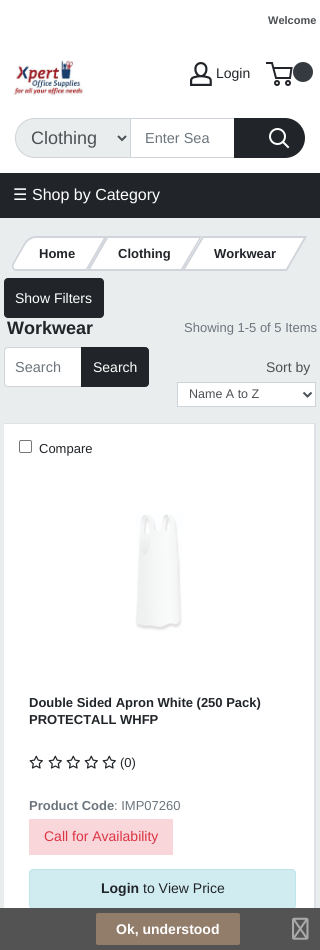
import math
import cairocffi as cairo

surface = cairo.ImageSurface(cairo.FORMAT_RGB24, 320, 950)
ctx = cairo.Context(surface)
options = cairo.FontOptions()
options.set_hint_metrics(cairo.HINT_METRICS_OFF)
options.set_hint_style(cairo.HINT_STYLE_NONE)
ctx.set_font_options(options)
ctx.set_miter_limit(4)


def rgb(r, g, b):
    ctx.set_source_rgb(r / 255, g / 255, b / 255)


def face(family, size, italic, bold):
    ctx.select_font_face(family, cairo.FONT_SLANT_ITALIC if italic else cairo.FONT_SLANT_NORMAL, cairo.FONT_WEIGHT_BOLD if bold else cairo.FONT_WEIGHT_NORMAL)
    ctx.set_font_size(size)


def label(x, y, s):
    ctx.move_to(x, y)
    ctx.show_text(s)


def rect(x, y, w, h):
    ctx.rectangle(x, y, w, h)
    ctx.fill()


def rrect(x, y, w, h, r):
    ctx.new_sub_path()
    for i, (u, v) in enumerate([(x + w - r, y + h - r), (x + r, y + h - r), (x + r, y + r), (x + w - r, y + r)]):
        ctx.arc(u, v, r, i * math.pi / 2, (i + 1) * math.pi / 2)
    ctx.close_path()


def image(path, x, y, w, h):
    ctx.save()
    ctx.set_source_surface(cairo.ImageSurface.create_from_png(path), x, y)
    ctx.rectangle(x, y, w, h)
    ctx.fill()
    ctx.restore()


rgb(234, 237, 237)
ctx.paint()
rgb(255, 255, 255)
rect(0, 0, 320, 173)
face('Liberation Sans', 11, 0, 1)
rgb(77, 81, 84)
label(268, 24, 'Welcome')
image('image0.png', 190, 62, 22, 24)
face('Liberation Sans', 14, 0, 0)
rgb(33, 37, 41)
label(216, 78, 'Login')
ctx.new_path()
ctx.move_to(273.5, 68)
ctx.line_to(291.5, 68)
ctx.line_to(290, 78)
ctx.line_to(276, 78)
ctx.line_to(272, 63)
ctx.line_to(266, 63)
ctx.stroke()
rgb(52, 58, 64)
ctx.arc(303, 72, 10, 0, 2 * math.pi)
ctx.fill()
ctx.arc(277, 83, 2, 0, 2 * math.pi)
rgb(33, 37, 41)
ctx.stroke()
ctx.arc(288, 83, 2, 0, 2 * math.pi)
ctx.stroke()
image('image1.png', 13, 60, 71, 36)
rgb(234, 237, 237)
ctx.new_path()
ctx.move_to(35, 118.5)
ctx.line_to(129, 118.5)
ctx.curve_to(130, 118.5, 130.5, 119, 130.5, 120)
ctx.line_to(130.5, 156)
ctx.curve_to(130.5, 157, 130, 157.5, 129, 157.5)
ctx.line_to(35, 157.5)
ctx.curve_to(24, 157.5, 15.5, 149, 15.5, 138)
ctx.curve_to(15.5, 127, 24, 118.5, 35, 118.5)
ctx.close_path()
ctx.fill_preserve()
rgb(206, 212, 218)
ctx.set_line_width(1)
ctx.stroke()
ctx.new_path()
ctx.move_to(118, 136)
ctx.line_to(122, 140)
ctx.line_to(126, 136)
rgb(73, 80, 87)
ctx.set_line_width(2)
ctx.stroke()
face('Liberation Sans', 18, 0, 0)
rgb(77, 81, 84)
label(31, 144, 'Clothing')
ctx.rectangle(130.5, 118.5, 104, 39)
rgb(206, 212, 218)
ctx.set_line_width(1)
ctx.stroke()
face('Liberation Sans', 14.5, 0, 0)
rgb(108, 117, 125)
label(145, 143, 'Enter Sea')
rgb(33, 37, 41)
ctx.new_path()
ctx.move_to(234, 118)
ctx.line_to(285, 118)
ctx.curve_to(296, 118, 305, 127, 305, 138)
ctx.curve_to(305, 149, 296, 158, 285, 158)
ctx.line_to(234, 158)
ctx.close_path()
ctx.fill()
ctx.new_path()
ctx.move_to(288, 147)
ctx.line_to(283, 142)
rgb(255, 255, 255)
ctx.set_line_width(2)
ctx.set_line_cap(cairo.LINE_CAP_SQUARE)
ctx.stroke()
ctx.arc(277.5, 136.5, 7.5, 0, 2 * math.pi)
ctx.set_line_cap(cairo.LINE_CAP_BUTT)
ctx.stroke()
rgb(33, 37, 41)
rect(0, 173, 320, 45)
face('DejaVu Sans', 16, 0, 0)
rgb(255, 255, 255)
label(13, 200, '☰')
face('Liberation Sans', 16, 0, 0)
label(32, 200, 'Shop by Category')
ctx.new_path()
ctx.move_to(36, 236)
ctx.line_to(107, 236)
ctx.line_to(87, 271)
ctx.line_to(16, 271)
ctx.curve_to(11, 271, 10, 268, 12, 263)
ctx.line_to(23, 244)
ctx.curve_to(26, 240, 32, 236, 36, 236)
ctx.close_path()
ctx.fill()
ctx.new_path()
ctx.move_to(35.5, 237)
ctx.line_to(105.5, 237)
ctx.line_to(86.5, 270)
ctx.line_to(16.5, 270)
ctx.curve_to(12.5, 270, 11.5, 267, 13.5, 263)
ctx.line_to(24.5, 244)
ctx.curve_to(26.5, 240.5, 31.5, 237, 35.5, 237)
ctx.close_path()
rgb(209, 213, 219)
ctx.stroke()
face('Liberation Sans', 13, 0, 1)
rgb(33, 37, 41)
label(39, 258, 'Home')
rgb(255, 255, 255)
ctx.new_path()
ctx.move_to(107, 236)
ctx.line_to(202, 236)
ctx.line_to(182, 271)
ctx.line_to(87, 271)
ctx.close_path()
ctx.fill()
ctx.new_path()
ctx.move_to(107.5, 237)
ctx.line_to(201, 237)
ctx.line_to(181.5, 270)
ctx.line_to(88.5, 270)
ctx.close_path()
rgb(209, 213, 219)
ctx.stroke()
rgb(33, 37, 41)
label(118, 258, 'Clothing')
rgb(255, 255, 255)
ctx.new_path()
ctx.move_to(202, 236)
ctx.line_to(307, 236)
ctx.line_to(287, 271)
ctx.line_to(182, 271)
ctx.close_path()
ctx.fill()
ctx.new_path()
ctx.move_to(203, 237)
ctx.line_to(305.5, 237)
ctx.line_to(286.5, 270)
ctx.line_to(183.5, 270)
ctx.close_path()
rgb(209, 213, 219)
ctx.stroke()
rgb(33, 37, 41)
label(214, 258, 'Workwear')
rrect(4.5, 278.5, 99, 39, 3.5)
ctx.fill_preserve()
ctx.set_line_width(1)
ctx.stroke()
face('Liberation Sans', 14, 0, 0)
rgb(255, 255, 255)
label(15, 303, 'Show Filters')
face('Liberation Sans', 18, 0, 1)
rgb(33, 37, 41)
label(7, 334, 'Workwear')
face('Liberation Sans', 13, 0, 0)
rgb(108, 117, 125)
label(184, 332, 'Showing 1-5 of 5 Items')
rgb(255, 255, 255)
ctx.new_path()
ctx.move_to(7.5, 348)
ctx.line_to(81, 348)
ctx.line_to(81, 386)
ctx.line_to(7.5, 386)
ctx.curve_to(6, 386, 5, 385, 5, 383.5)
ctx.line_to(5, 350.5)
ctx.curve_to(5, 349, 6, 348, 7.5, 348)
ctx.close_path()
ctx.fill()
ctx.new_path()
ctx.move_to(8, 347.5)
ctx.line_to(81.5, 347.5)
ctx.line_to(81.5, 386.5)
ctx.line_to(8, 386.5)
ctx.curve_to(6, 386.5, 4.5, 385, 4.5, 383)
ctx.line_to(4.5, 351)
ctx.curve_to(4.5, 349, 6, 347.5, 8, 347.5)
ctx.close_path()
rgb(206, 212, 218)
ctx.stroke()
face('Liberation Sans', 14.5, 0, 0)
rgb(108, 117, 125)
label(15, 372, 'Search')
rgb(33, 37, 41)
ctx.new_path()
ctx.move_to(81.5, 347.5)
ctx.line_to(145, 347.5)
ctx.curve_to(147, 347.5, 148.5, 349, 148.5, 351)
ctx.line_to(148.5, 383)
ctx.curve_to(148.5, 385, 147, 386.5, 145, 386.5)
ctx.line_to(81.5, 386.5)
ctx.close_path()
ctx.fill_preserve()
ctx.stroke()
face('Liberation Sans', 14, 0, 0)
rgb(255, 255, 255)
label(93, 372, 'Search')
rgb(77, 81, 84)
label(266, 372, 'Sort by')
rgb(255, 255, 255)
ctx.rectangle(177.5, 382.5, 138, 24)
ctx.fill_preserve()
rgb(206, 212, 218)
ctx.stroke()
ctx.new_path()
ctx.move_to(303.5, 392.5)
ctx.line_to(307.5, 396.5)
ctx.line_to(311.5, 392.5)
rgb(73, 80, 87)
ctx.set_line_width(2)
ctx.stroke()
face('Liberation Sans', 12.5, 0, 0)
rgb(77, 81, 84)
label(189, 398, 'Name A to Z')
rgb(255, 255, 255)
rect(4, 424, 310, 484)
rgb(222, 226, 230)
rect(4, 423, 312, 1)
rect(314, 423, 2, 485)
rrect(19.5, 440.5, 12, 12, 1.5)
rgb(118, 118, 118)
ctx.set_line_width(1)
ctx.stroke()
face('Liberation Sans', 13, 0, 0)
rgb(33, 37, 41)
label(39, 453, 'Compare')
image('image2.png', 135, 514, 47, 117)
face('Liberation Sans', 13, 0, 1)
label(29, 707, 'Double Sided Apron White (250 Pack)')
label(29, 724, 'PROTECTALL WHFP')
image('image3.png', 29, 755, 14, 14)
image('image3.png', 48, 755, 14, 14)
image('image3.png', 66, 755, 14, 14)
image('image3.png', 84, 755, 14, 14)
image('image3.png', 102, 755, 14, 14)
face('Liberation Sans', 13, 0, 0)
label(120, 767, '(0)')
face('Liberation Sans', 13, 0, 1)
rgb(108, 117, 125)
label(29, 810, 'Product Code')
face('Liberation Sans', 13, 0, 0)
label(114, 810, ': IMP07260')
rgb(248, 214, 217)
rect(29, 819, 144, 36)
face('Liberation Sans', 14, 0, 0)
rgb(220, 53, 69)
label(44, 841, 'Call for Availability')
rgb(209, 236, 241)
rrect(29.5, 869.5, 266, 39, 3.5)
ctx.fill_preserve()
rgb(190, 229, 235)
ctx.stroke()
face('Liberation Sans', 14, 0, 1)
rgb(33, 37, 41)
label(101, 893, 'Login')
face('Liberation Sans', 14, 0, 0)
label(143, 893, 'to View Price')
rgb(83, 83, 83)
rect(0, 908, 320, 42)
rgb(146, 125, 106)
rrect(96, 913, 144, 32, 2)
ctx.fill()
face('Liberation Sans', 14, 0, 1)
rgb(255, 255, 255)
label(116, 934, 'Ok, understood')
image('image4.png', 292, 917, 17, 23)
surface.write_to_png('render.png')
